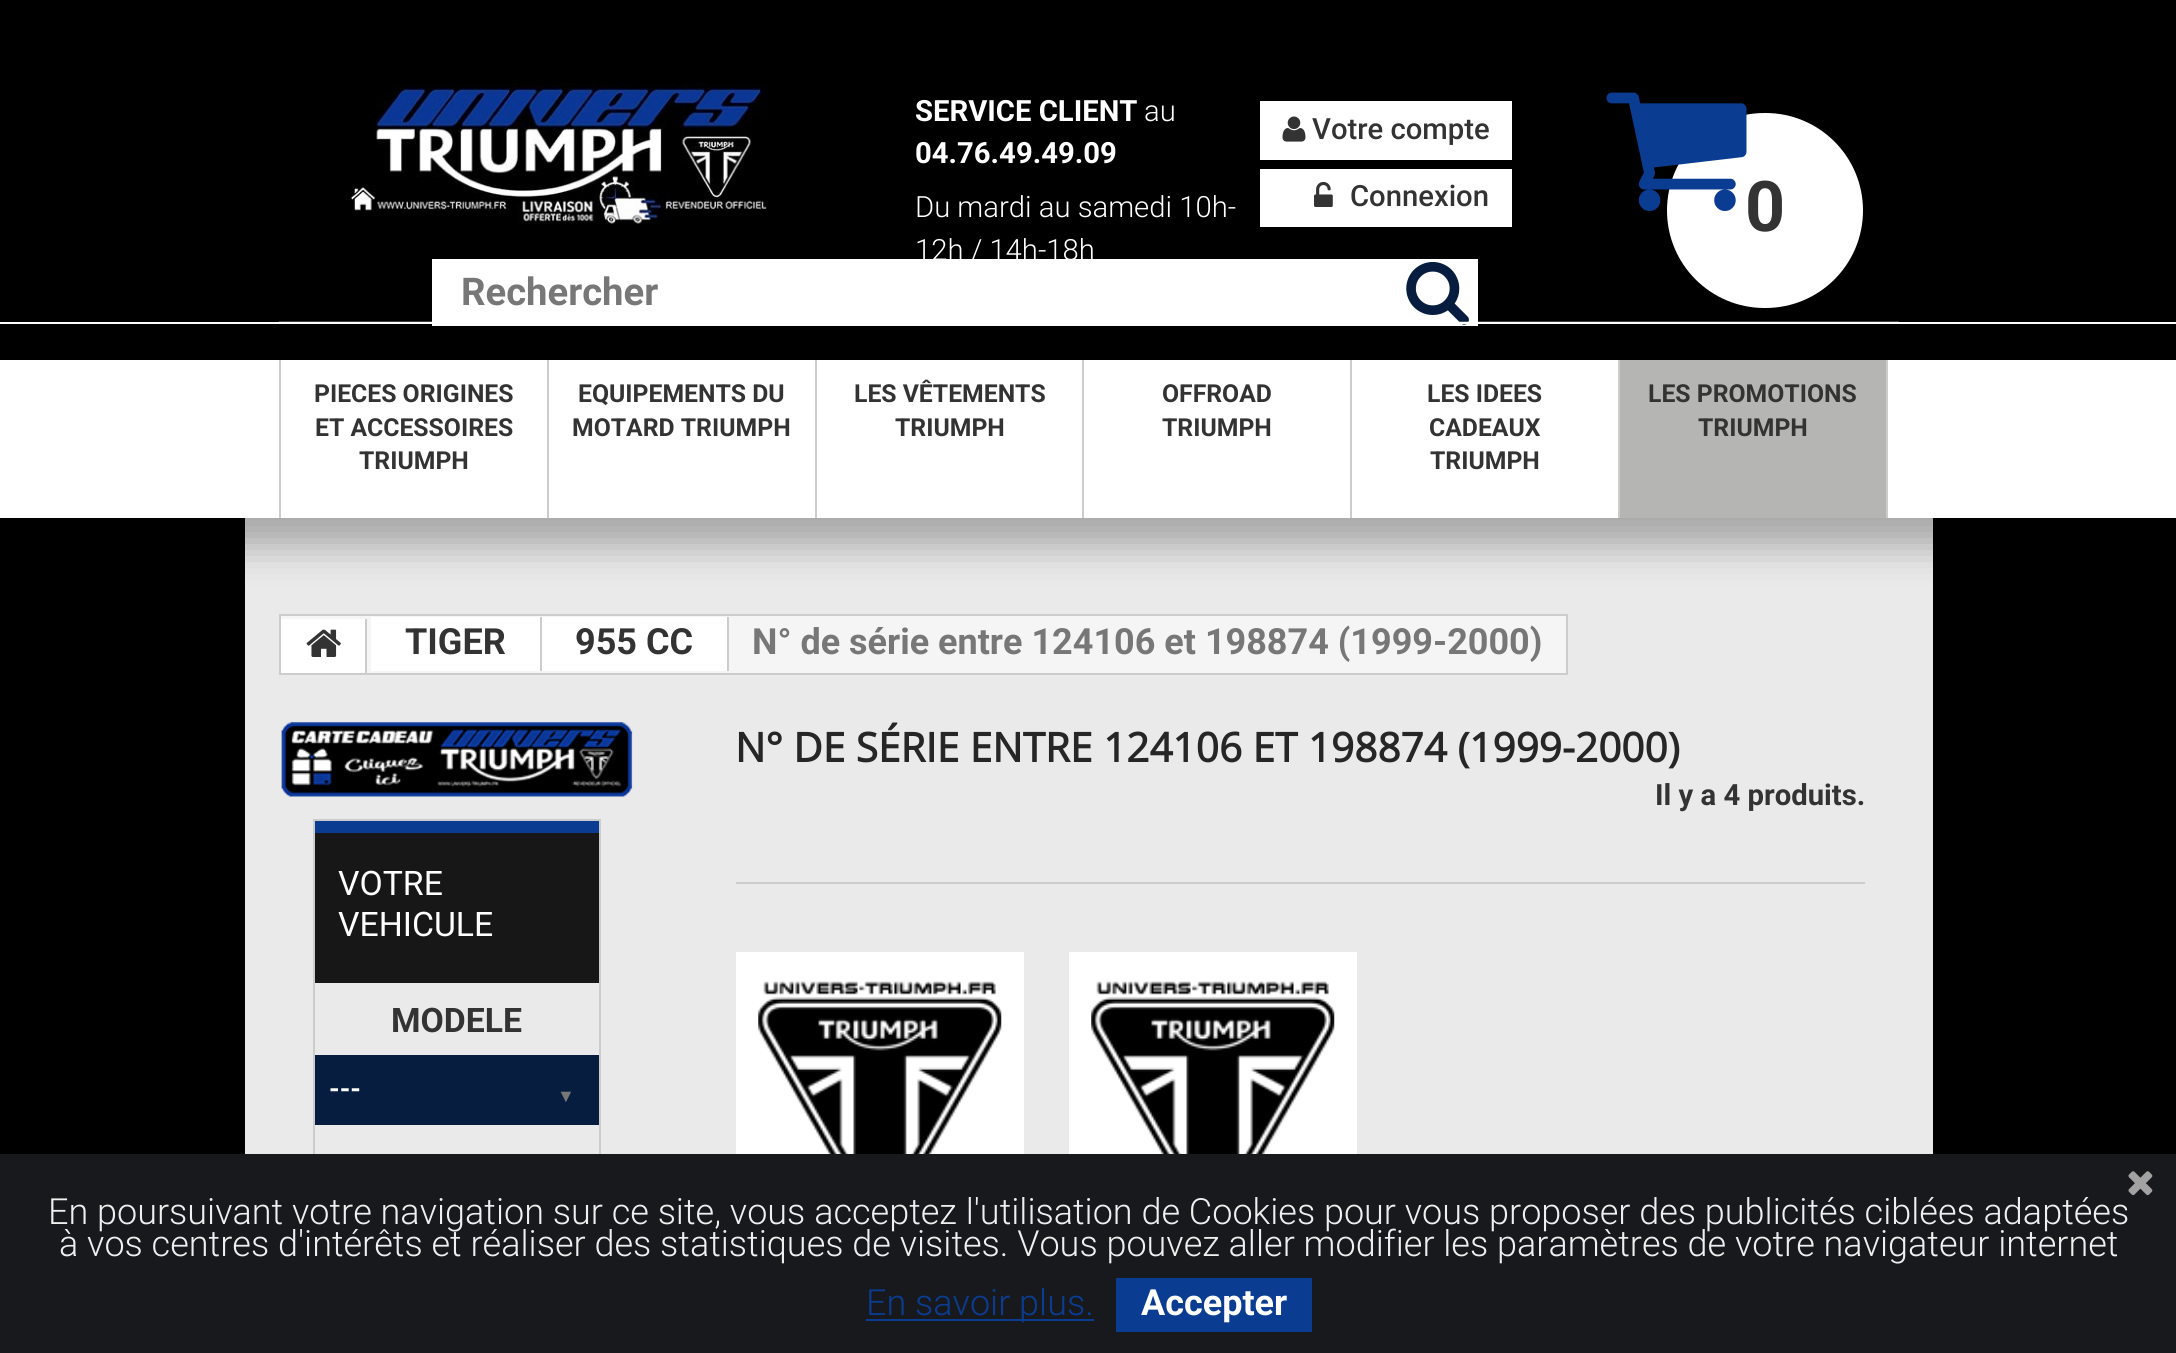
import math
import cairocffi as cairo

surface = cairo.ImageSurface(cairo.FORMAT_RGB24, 2176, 1353)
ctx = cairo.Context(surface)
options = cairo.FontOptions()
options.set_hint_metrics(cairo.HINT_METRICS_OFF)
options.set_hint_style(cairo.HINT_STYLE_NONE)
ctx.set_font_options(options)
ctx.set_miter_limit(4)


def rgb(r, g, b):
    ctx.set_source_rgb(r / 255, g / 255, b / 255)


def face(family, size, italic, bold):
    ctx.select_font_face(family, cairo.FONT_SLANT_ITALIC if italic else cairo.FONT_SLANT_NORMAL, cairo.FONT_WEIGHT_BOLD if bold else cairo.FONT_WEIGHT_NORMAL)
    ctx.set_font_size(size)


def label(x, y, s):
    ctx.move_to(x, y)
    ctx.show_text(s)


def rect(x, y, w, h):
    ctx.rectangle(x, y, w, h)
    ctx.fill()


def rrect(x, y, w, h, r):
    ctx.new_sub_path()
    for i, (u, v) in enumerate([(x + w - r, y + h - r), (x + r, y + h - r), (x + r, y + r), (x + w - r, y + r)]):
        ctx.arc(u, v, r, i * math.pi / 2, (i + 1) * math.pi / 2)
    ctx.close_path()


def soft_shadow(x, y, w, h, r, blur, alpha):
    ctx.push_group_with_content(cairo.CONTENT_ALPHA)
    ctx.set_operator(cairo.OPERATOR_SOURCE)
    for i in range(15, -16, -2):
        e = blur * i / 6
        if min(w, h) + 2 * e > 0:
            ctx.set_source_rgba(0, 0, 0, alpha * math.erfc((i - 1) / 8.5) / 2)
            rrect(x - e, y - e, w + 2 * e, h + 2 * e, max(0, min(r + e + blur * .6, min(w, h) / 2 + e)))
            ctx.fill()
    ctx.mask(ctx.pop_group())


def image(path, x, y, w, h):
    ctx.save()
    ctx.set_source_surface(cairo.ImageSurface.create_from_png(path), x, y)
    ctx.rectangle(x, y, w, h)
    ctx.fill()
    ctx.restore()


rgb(0, 0, 0)
ctx.paint()
image('image0.png', 346, 83, 422, 141)
face('Roboto', 29.25, 0, 1)
rgb(255, 255, 255)
label(915, 121, 'SERVICE CLIENT')
face('Roboto Light', 29.25, 0, 0)
label(1144, 121, 'au')
face('Roboto', 29.25, 0, 1)
label(915, 163, '04.76.49.49.09')
rect(1260, 101, 252, 59)
image('image1.png', 1282, 116, 24, 26)
face('Roboto Medium', 29.25, 0, 0)
rgb(51, 51, 51)
label(1312, 139, 'Votre compte')
rgb(255, 255, 255)
rect(1260, 169, 252, 58)
image('image2.png', 1314, 181, 19, 26)
rgb(51, 51, 51)
label(1350, 206, 'Connexion')
rgb(255, 255, 255)
rrect(1667, 113, 196, 195, 97.5)
ctx.fill()
image('image3.png', 1606, 92, 141, 119)
face('Roboto', 70, 0, 1)
rgb(51, 51, 51)
label(1745, 231, '0')
face('Roboto Light', 29.25, 0, 0)
rgb(255, 255, 255)
label(915, 217, 'Du mardi au samedi 10h-')
rect(432, 259, 1046, 67)
label(915, 260, '12h / 14h-18h')
face('Roboto', 38.25, 0, 1)
rgb(119, 119, 119)
label(461, 305, 'Rechercher')
image('image4.png', 1406, 262, 63, 63)
rgb(234, 234, 234)
rect(245, 518, 1688, 636)
rgb(0, 0, 0)
soft_shadow(0, 389, 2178, 158, 0, 18, 0.28)
rgb(255, 255, 255)
rect(0, 360, 2176, 158)
rgb(204, 204, 204)
rect(547, 360, 2, 158)
rect(279, 360, 2, 158)
face('Roboto', 24.75, 0, 1)
rgb(51, 51, 51)
label(314, 402, 'PIECES ORIGINES')
label(315, 436, 'ET ACCESSOIRES')
label(359, 469, 'TRIUMPH')
rgb(204, 204, 204)
rect(815, 360, 2, 158)
rgb(51, 51, 51)
label(578, 402, 'EQUIPEMENTS DU')
label(572, 436, 'MOTARD TRIUMPH')
rgb(204, 204, 204)
rect(1082, 360, 2, 158)
rgb(51, 51, 51)
label(854, 402, 'LES VÊTEMENTS')
label(895, 436, 'TRIUMPH')
rgb(204, 204, 204)
rect(1350, 360, 2, 158)
rgb(51, 51, 51)
label(1162, 402, 'OFFROAD')
label(1162, 436, 'TRIUMPH')
rgb(204, 204, 204)
rect(1618, 360, 2, 158)
rgb(51, 51, 51)
label(1427, 402, 'LES IDEES')
label(1429, 436, 'CADEAUX')
label(1430, 469, 'TRIUMPH')
rgb(181, 181, 179)
rect(1620, 360, 266, 158)
rgb(204, 204, 204)
rect(1886, 360, 2, 158)
rgb(51, 51, 51)
label(1648, 402, 'LES PROMOTIONS')
label(1698, 436, 'TRIUMPH')
rgb(255, 255, 255)
rect(0, 322, 2176, 2)
ctx.set_source_rgba(1, 1, 1, 0.25)
rect(279, 321, 1620, 1)
rgb(245, 245, 245)
ctx.rectangle(280, 615, 1287, 59)
ctx.fill_preserve()
rgb(204, 204, 204)
ctx.stroke()
rgb(255, 255, 255)
rect(281, 619, 84, 54)
rgb(204, 204, 204)
rect(365, 619, 2, 54)
image('image5.png', 306, 629, 35, 28)
rgb(255, 255, 255)
rect(371, 617, 169, 54)
rgb(204, 204, 204)
rect(540, 617, 2, 54)
face('Roboto', 36, 0, 1)
rgb(51, 51, 51)
label(405, 654, 'TIGER')
rgb(255, 255, 255)
rect(542, 617, 185, 54)
rgb(204, 204, 204)
rect(727, 617, 2, 54)
rgb(51, 51, 51)
label(575, 654, '955 CC')
rgb(119, 119, 119)
label(752, 654, 'N° de série entre 124106 et 198874 (1999-2000)')
face('Open Sans', 40.5, 0, 1)
rgb(38, 38, 38)
label(735, 762, 'N° DE SÉRIE ENTRE 124106 ET 198874 (1999-2000)')
face('Roboto', 29.25, 0, 1)
rgb(51, 51, 51)
label(1655, 805, 'Il y a 4 produits.')
rgb(204, 204, 204)
rect(736, 882, 1129, 2)
rgb(255, 255, 255)
rect(736, 952, 288, 202)
image('image6.png', 758, 981, 244, 173)
rect(1069, 952, 288, 202)
image('image6.png', 1091, 981, 244, 173)
image('image7.png', 281, 722, 352, 75)
rgb(204, 204, 204)
rect(313, 819, 288, 2)
rect(599, 819, 2, 335)
rect(313, 819, 2, 335)
rgb(23, 23, 23)
rect(315, 833, 284, 150)
rgb(10, 61, 146)
rect(315, 821, 284, 12)
face('Roboto', 33.75, 0, 0)
rgb(255, 255, 255)
label(338, 895, 'VOTRE')
label(338, 936, 'VEHICULE')
face('Roboto', 33.75, 0, 1)
rgb(51, 51, 51)
label(391, 1032, 'MODELE')
rgb(6, 29, 64)
rect(315, 1055, 284, 70)
face('Roboto', 27, 0, 1)
rgb(255, 255, 255)
label(329, 1098, '---')
face('Liberation Sans', 18, 0, 0)
rgb(119, 119, 119)
label(557, 1102, '▼')
rgb(23, 25, 28)
rect(0, 1154, 2176, 199)
image('image8.png', 2128, 1171, 25, 25)
face('Roboto Light', 36, 0, 0)
rgb(239, 239, 239)
label(48, 1224, 'En poursuivant votre navigation sur ce site, vous acceptez l\'utilisation de Cookies pour vous proposer des publicités ciblées adaptées')
label(59, 1256, 'à vos centres d\'intérêts et réaliser des statistiques de visites. Vous pouvez aller modifier les paramètres de votre navigateur internet')
rgb(10, 61, 146)
rect(866, 1319, 228, 2)
label(866, 1315, 'En savoir plus.')
rect(1116, 1278, 196, 54)
face('Roboto', 36, 0, 1)
rgb(255, 255, 255)
label(1141, 1315, 'Accepter')
surface.write_to_png('render.png')
